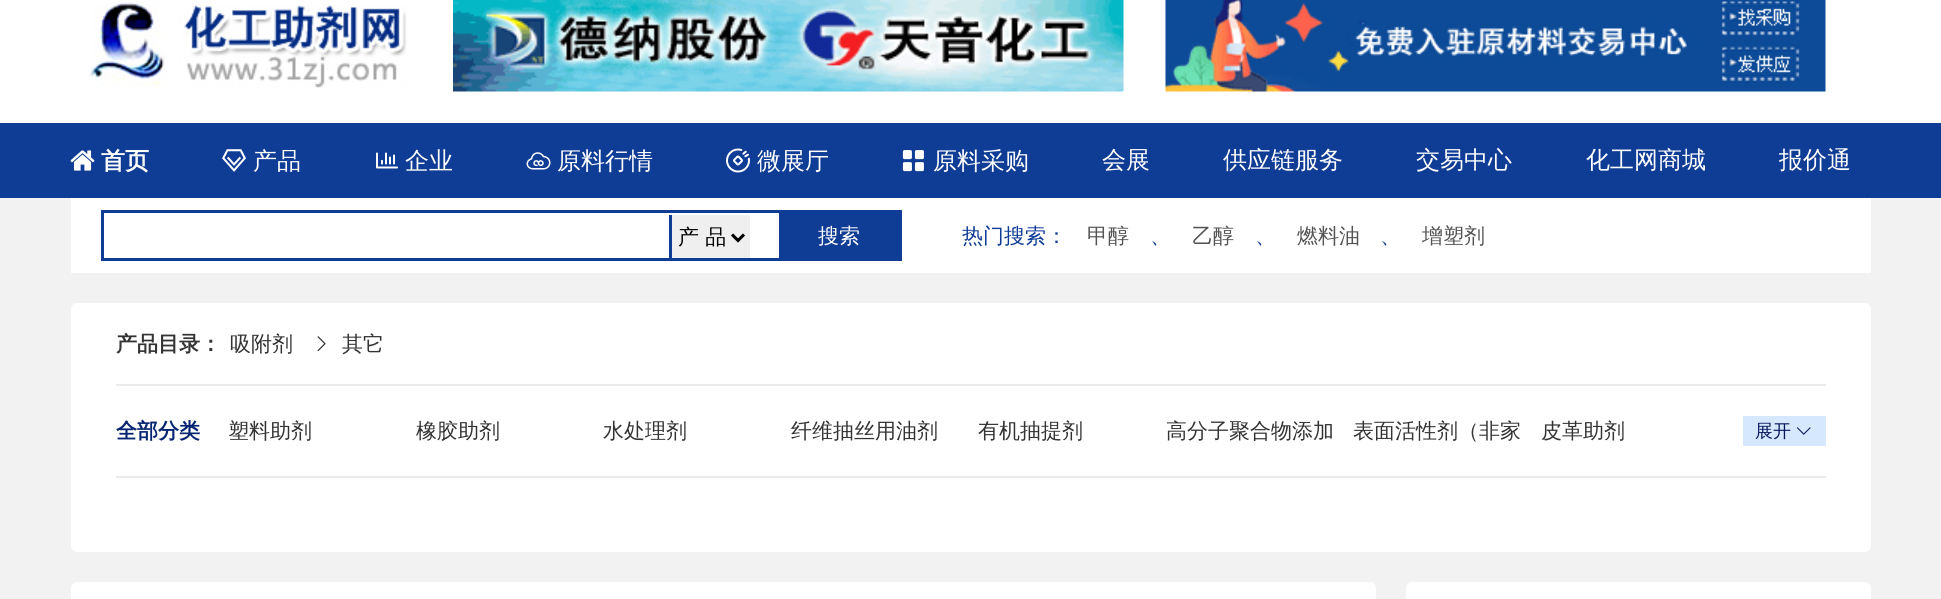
import math
import cairocffi as cairo

surface = cairo.ImageSurface(cairo.FORMAT_RGB24, 1941, 599)
ctx = cairo.Context(surface)
options = cairo.FontOptions()
options.set_hint_metrics(cairo.HINT_METRICS_OFF)
options.set_hint_style(cairo.HINT_STYLE_NONE)
ctx.set_font_options(options)
ctx.set_miter_limit(4)


def rgb(r, g, b):
    ctx.set_source_rgb(r / 255, g / 255, b / 255)


def face(family, size, italic, bold):
    ctx.select_font_face(family, cairo.FONT_SLANT_ITALIC if italic else cairo.FONT_SLANT_NORMAL, cairo.FONT_WEIGHT_BOLD if bold else cairo.FONT_WEIGHT_NORMAL)
    ctx.set_font_size(size)


def label(x, y, s):
    ctx.move_to(x, y)
    ctx.show_text(s)


def rect(x, y, w, h):
    ctx.rectangle(x, y, w, h)
    ctx.fill()


def rrect(x, y, w, h, r):
    ctx.new_sub_path()
    for i, (u, v) in enumerate([(x + w - r, y + h - r), (x + r, y + h - r), (x + r, y + r), (x + w - r, y + r)]):
        ctx.arc(u, v, r, i * math.pi / 2, (i + 1) * math.pi / 2)
    ctx.close_path()


def image(path, x, y, w, h):
    ctx.save()
    ctx.set_source_surface(cairo.ImageSurface.create_from_png(path), x, y)
    ctx.rectangle(x, y, w, h)
    ctx.fill()
    ctx.restore()


rgb(242, 242, 242)
ctx.paint()
rgb(255, 255, 255)
rect(0, 0, 1941, 123)
image('image0.png', 89, 2, 318, 86)
image('image1.png', 453, 0, 671, 92)
image('image2.png', 1165, 0, 661, 92)
rgb(15, 60, 149)
rect(0, 123, 1941, 75)
image('image3.png', 70, 150, 25, 21)
face('WenQuanYi Zen Hei', 24, 0, 1)
rgb(255, 255, 255)
label(101, 169, '首页')
image('image4.png', 222, 149, 24, 23)
face('WenQuanYi Zen Hei Medium', 24, 0, 0)
label(253, 169, '产品')
image('image5.png', 376, 152, 22, 17)
label(405, 169, '企业')
image('image6.png', 526, 152, 25, 18)
label(557, 169, '原料行情')
image('image7.png', 726, 148, 24, 25)
label(757, 169, '微展厅')
image('image8.png', 902, 150, 22, 22)
label(933, 169, '原料采购')
label(1102, 168, '会展')
label(1223, 168, '供应链服务')
label(1416, 168, '交易中心')
label(1586, 168, '化工网商城')
label(1779, 168, '报价通')
rect(71, 198, 1800, 75)
ctx.rectangle(102.5, 211.5, 798, 48)
rgb(15, 60, 149)
ctx.set_line_width(3)
ctx.stroke()
rgb(239, 239, 239)
rect(672, 215, 78, 43)
rgb(15, 60, 149)
rect(669, 215, 3, 45)
ctx.new_path()
ctx.move_to(732, 234.5)
ctx.line_to(738, 240.5)
ctx.line_to(744, 234.5)
rgb(0, 0, 0)
ctx.stroke()
face('WenQuanYi Zen Hei Medium', 21, 0, 0)
label(678, 244, '产 品')
rgb(15, 60, 149)
rect(779, 213, 120, 45)
rgb(255, 255, 255)
label(818, 243, '搜索')
rgb(15, 60, 149)
label(962, 243, '热门搜索：')
rgb(83, 83, 83)
label(1087, 243, '甲醇')
rgb(15, 60, 149)
label(1150, 243, '、')
rgb(83, 83, 83)
label(1192, 243, '乙醇')
rgb(15, 60, 149)
label(1255, 243, '、')
rgb(83, 83, 83)
label(1297, 243, '燃料油')
rgb(15, 60, 149)
label(1380, 243, '、')
rgb(83, 83, 83)
label(1422, 243, '增塑剂')
rgb(255, 255, 255)
rrect(71, 303, 1800, 249, 6)
ctx.fill()
rgb(235, 235, 235)
rect(116, 384, 1710, 2)
face('WenQuanYi Zen Hei', 21, 0, 1)
rgb(51, 51, 51)
label(116, 351, '产品目录：')
face('WenQuanYi Zen Hei Medium', 21, 0, 0)
label(230, 351, '吸附剂')
image('image9.png', 317, 336, 9, 16)
label(342, 351, '其它')
rgb(235, 235, 235)
rect(116, 476, 1710, 2)
face('WenQuanYi Zen Hei', 21, 0, 1)
rgb(6, 36, 113)
label(116, 438, '全部分类')
face('WenQuanYi Zen Hei Medium', 21, 0, 0)
rgb(51, 51, 51)
label(228, 438, '塑料助剂')
label(416, 438, '橡胶助剂')
label(603, 438, '水处理剂')
label(791, 438, '纤维抽丝用油剂')
label(978, 438, '有机抽提剂')
label(1166, 438, '高分子聚合物添加')
label(1353, 438, '表面活性剂（非家')
label(1541, 438, '皮革助剂')
rgb(214, 232, 254)
rect(1743, 416, 83, 30)
face('WenQuanYi Zen Hei Medium', 18, 0, 0)
rgb(6, 22, 92)
label(1755, 437, '展开')
image('image10.png', 1796, 427, 15, 8)
rgb(255, 255, 255)
rrect(71, 582, 1305, 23, 6)
ctx.fill()
rrect(1406, 582, 465, 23, 6)
ctx.fill()
surface.write_to_png('render.png')
